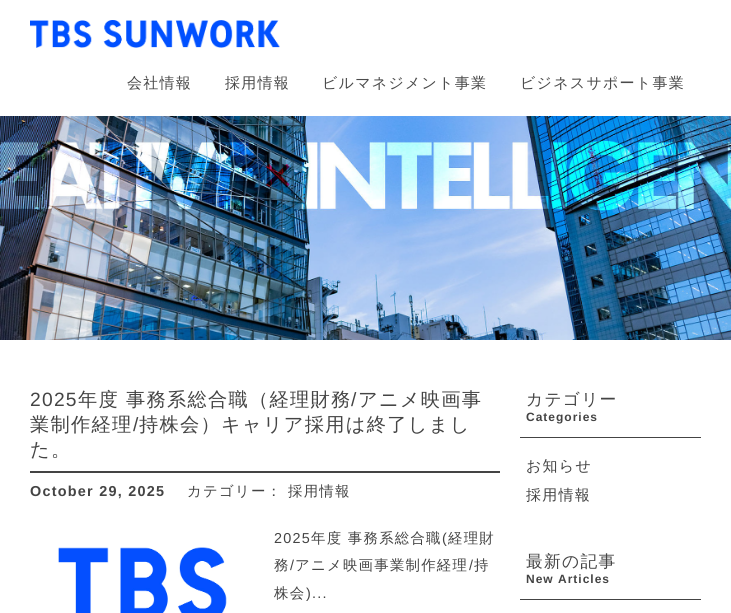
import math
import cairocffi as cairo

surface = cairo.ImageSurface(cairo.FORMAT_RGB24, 731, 613)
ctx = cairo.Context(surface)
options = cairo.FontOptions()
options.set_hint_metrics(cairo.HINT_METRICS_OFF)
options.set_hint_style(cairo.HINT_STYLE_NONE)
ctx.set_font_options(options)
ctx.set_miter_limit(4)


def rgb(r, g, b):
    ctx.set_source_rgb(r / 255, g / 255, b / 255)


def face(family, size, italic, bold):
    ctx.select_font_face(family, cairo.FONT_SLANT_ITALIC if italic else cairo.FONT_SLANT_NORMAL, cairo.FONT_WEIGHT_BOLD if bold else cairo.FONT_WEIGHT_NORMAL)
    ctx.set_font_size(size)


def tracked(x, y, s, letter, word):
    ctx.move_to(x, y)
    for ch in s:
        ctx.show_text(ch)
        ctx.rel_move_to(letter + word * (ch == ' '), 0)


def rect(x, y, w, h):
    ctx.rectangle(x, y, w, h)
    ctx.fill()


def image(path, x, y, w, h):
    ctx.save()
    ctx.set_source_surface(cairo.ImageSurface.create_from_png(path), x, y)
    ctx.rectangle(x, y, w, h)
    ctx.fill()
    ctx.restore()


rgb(255, 255, 255)
ctx.paint()
image('image0.png', 30, 20, 250, 28)
face('WenQuanYi Zen Hei Medium', 15, 0, 0)
rgb(74, 74, 74)
tracked(127, 88, '会社情報', 1.25, 0)
tracked(225, 88, '採用情報', 1.25, 0)
tracked(322, 88, 'ビルマネジメント事業', 1.25, 0)
tracked(520, 88, 'ビジネスサポート事業', 1.25, 0)
image('image1.png', 0, 116, 731, 224)
rgb(68, 68, 68)
rect(30, 471, 470, 2)
face('Liberation Sans', 19.25, 0, 0)
tracked(30, 406, '2025', 1.25, 0)
face('WenQuanYi Zen Hei Medium', 19.25, 0, 0)
tracked(78, 406, '年度 事務系総合職（経理財務', 1.25, 0)
face('Liberation Sans', 19.25, 0, 0)
tracked(351, 406, '/', 1.25, 0)
face('WenQuanYi Zen Hei Medium', 19.25, 0, 0)
tracked(358, 406, 'アニメ映画事', 1.25, 0)
tracked(30, 431, '業制作経理', 1.25, 0)
face('Liberation Sans', 19.25, 0, 0)
tracked(133, 431, '/', 1.25, 0)
face('WenQuanYi Zen Hei Medium', 19.25, 0, 0)
tracked(139, 431, '持株会）キャリア採用は終了しまし', 1.25, 0)
tracked(30, 456, 'た。', 1.25, 0)
face('Liberation Sans', 14.4, 0, 1)
tracked(30, 496, 'October 29, 2025', 1.25, 0)
face('WenQuanYi Zen Hei Medium', 14.4, 0, 0)
tracked(187, 496, 'カテゴリー：', 1.25, 0)
tracked(288, 496, '採用情報', 1.25, 0)
image('image2.png', 58, 547, 169, 66)
face('Liberation Sans', 14.4, 0, 0)
tracked(274, 543, '2025', 1.25, 0)
face('WenQuanYi Zen Hei Medium', 14.4, 0, 0)
tracked(311, 543, '年度 事務系総合職', 1.25, 0)
face('Liberation Sans', 14.4, 0, 0)
tracked(442, 543, '(', 1.25, 0)
face('WenQuanYi Zen Hei Medium', 14.4, 0, 0)
tracked(448, 543, '経理財', 1.25, 0)
tracked(274, 570, '務', 1.25, 0)
face('Liberation Sans', 14.4, 0, 0)
tracked(290, 570, '/', 1.25, 0)
face('WenQuanYi Zen Hei Medium', 14.4, 0, 0)
tracked(295, 570, 'アニメ映画事業制作経理', 1.25, 0)
face('Liberation Sans', 14.4, 0, 0)
tracked(469, 570, '/', 1.25, 0)
face('WenQuanYi Zen Hei Medium', 14.4, 0, 0)
tracked(474, 570, '持', 1.25, 0)
tracked(274, 598, '株会', 1.25, 0)
face('Liberation Sans', 14.4, 0, 0)
tracked(306, 598, ')...', 1.25, 0)
rect(520, 437, 181, 1)
face('WenQuanYi Zen Hei Medium', 16.75, 0, 0)
tracked(526, 405, 'カテゴリー', 1.25, 0)
face('Liberation Sans', 12, 0, 1)
tracked(526, 421, 'Categories', 1, 0)
face('WenQuanYi Zen Hei Medium', 15, 0, 0)
tracked(526, 471, 'お知らせ', 1.25, 0)
tracked(526, 500, '採用情報', 1.25, 0)
rect(520, 599, 181, 1)
face('WenQuanYi Zen Hei Medium', 16.75, 0, 0)
tracked(526, 567, '最新の記事', 1.25, 0)
face('Liberation Sans', 12, 0, 1)
tracked(526, 583, 'New Articles', 1, 0)
surface.write_to_png('render.png')
